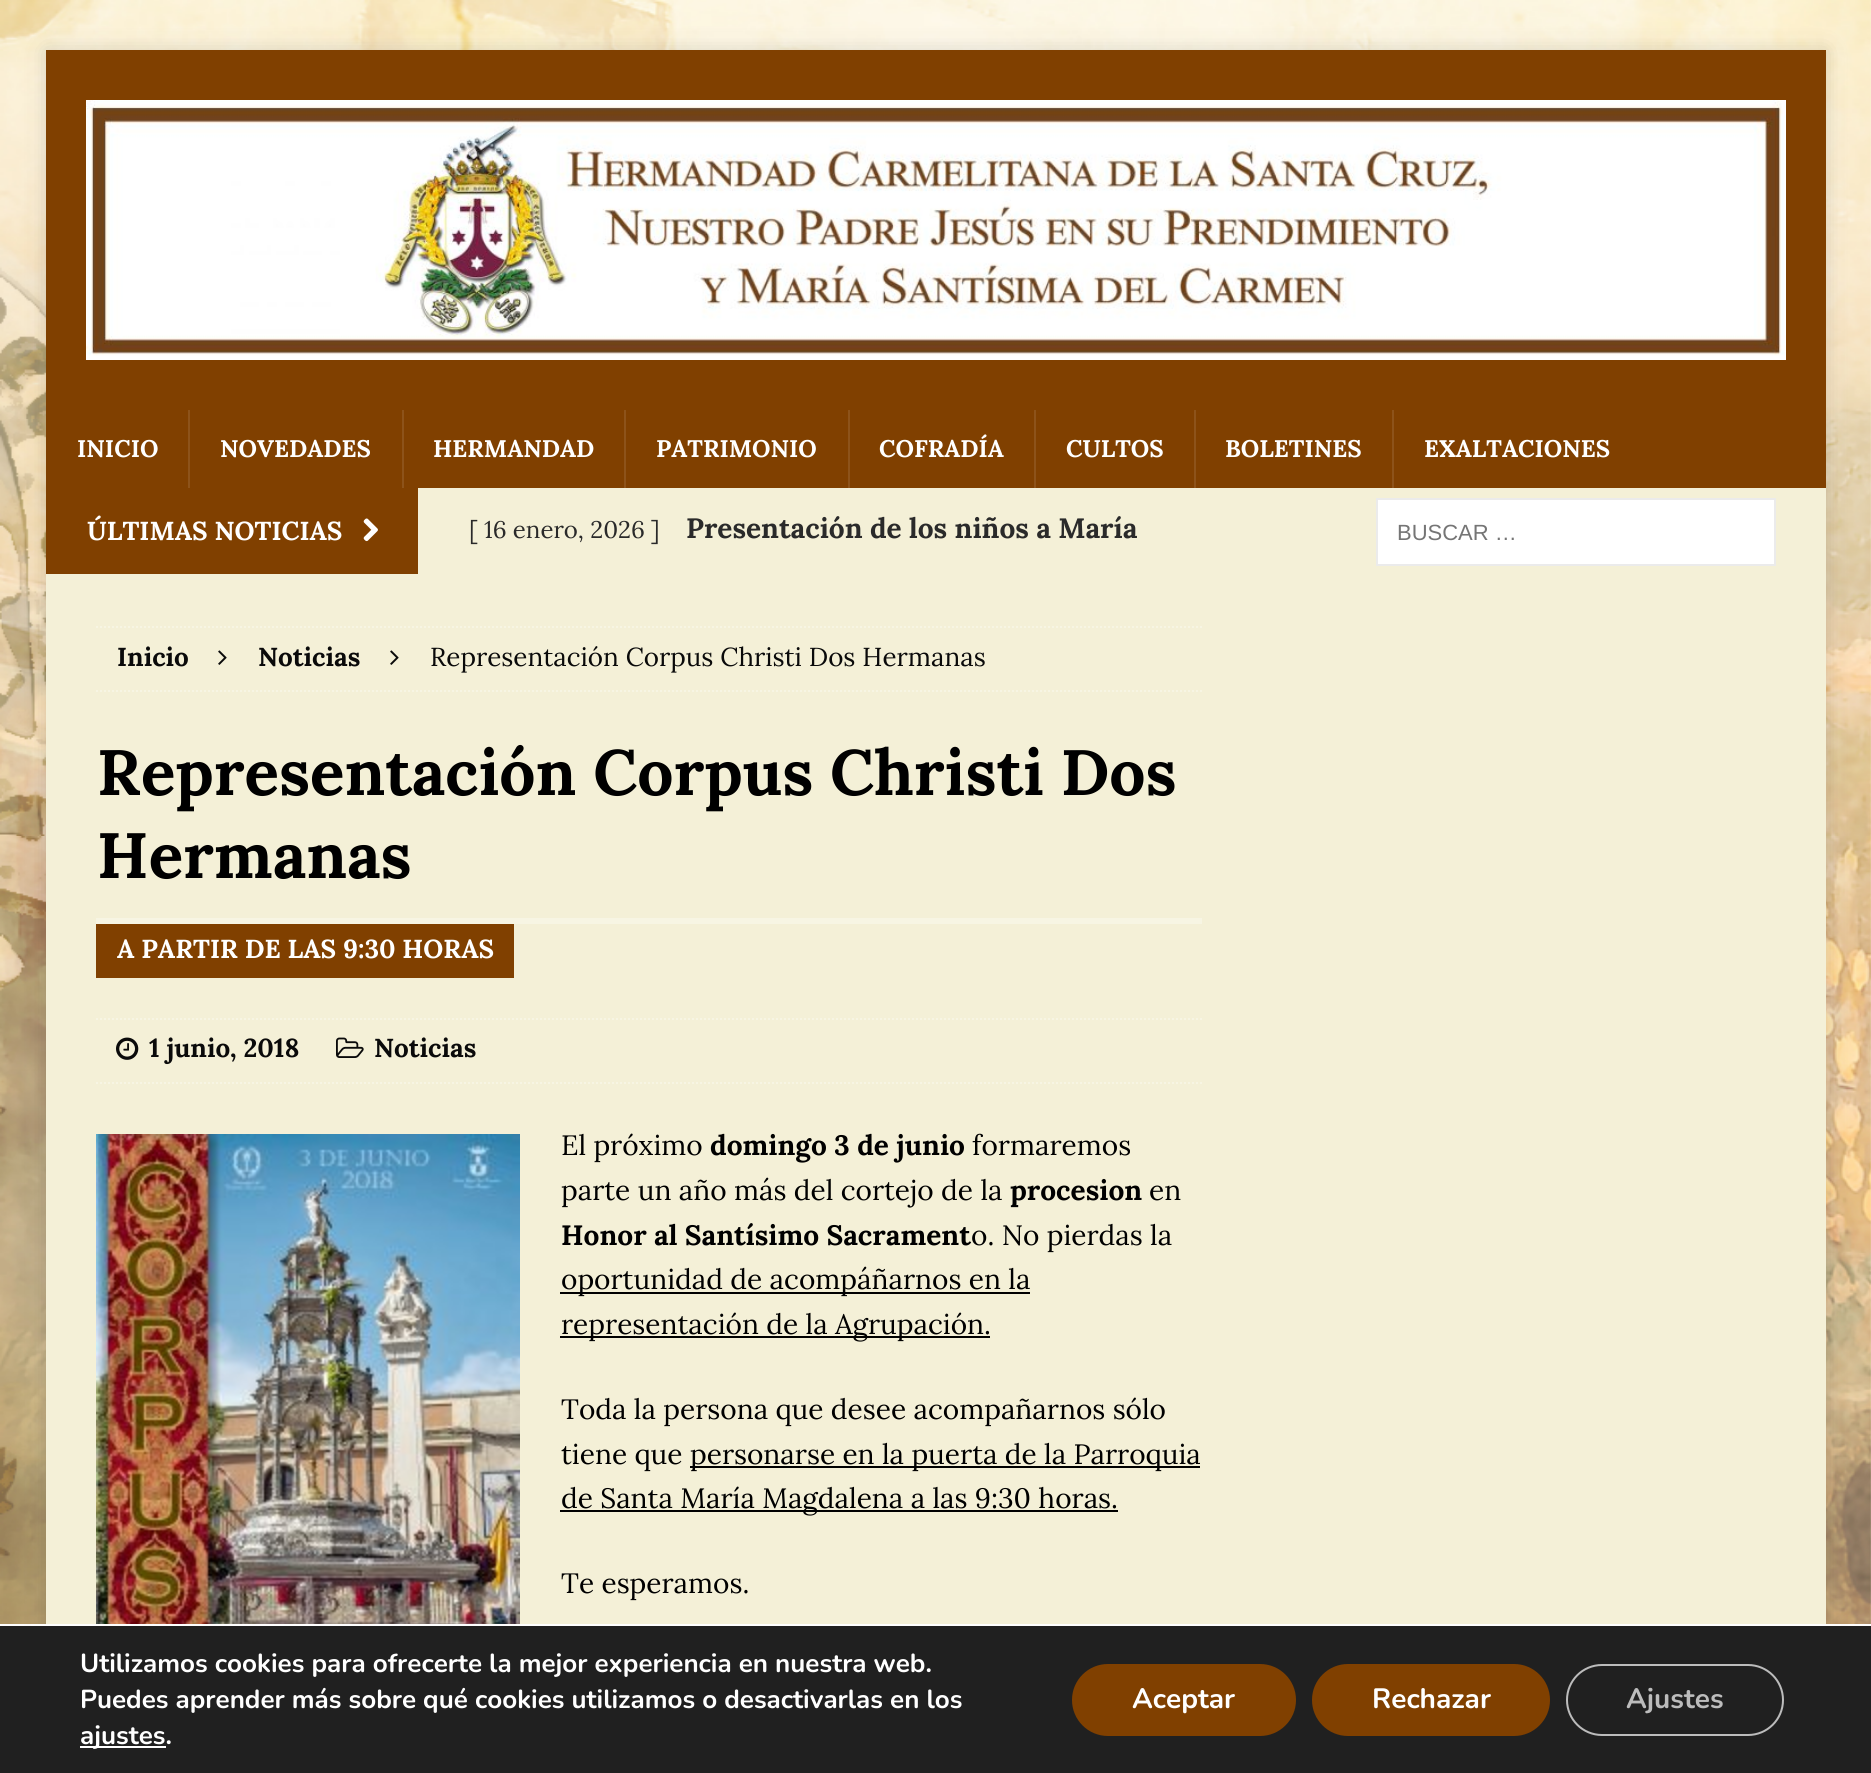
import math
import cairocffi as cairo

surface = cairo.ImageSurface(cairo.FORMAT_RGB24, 1871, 1773)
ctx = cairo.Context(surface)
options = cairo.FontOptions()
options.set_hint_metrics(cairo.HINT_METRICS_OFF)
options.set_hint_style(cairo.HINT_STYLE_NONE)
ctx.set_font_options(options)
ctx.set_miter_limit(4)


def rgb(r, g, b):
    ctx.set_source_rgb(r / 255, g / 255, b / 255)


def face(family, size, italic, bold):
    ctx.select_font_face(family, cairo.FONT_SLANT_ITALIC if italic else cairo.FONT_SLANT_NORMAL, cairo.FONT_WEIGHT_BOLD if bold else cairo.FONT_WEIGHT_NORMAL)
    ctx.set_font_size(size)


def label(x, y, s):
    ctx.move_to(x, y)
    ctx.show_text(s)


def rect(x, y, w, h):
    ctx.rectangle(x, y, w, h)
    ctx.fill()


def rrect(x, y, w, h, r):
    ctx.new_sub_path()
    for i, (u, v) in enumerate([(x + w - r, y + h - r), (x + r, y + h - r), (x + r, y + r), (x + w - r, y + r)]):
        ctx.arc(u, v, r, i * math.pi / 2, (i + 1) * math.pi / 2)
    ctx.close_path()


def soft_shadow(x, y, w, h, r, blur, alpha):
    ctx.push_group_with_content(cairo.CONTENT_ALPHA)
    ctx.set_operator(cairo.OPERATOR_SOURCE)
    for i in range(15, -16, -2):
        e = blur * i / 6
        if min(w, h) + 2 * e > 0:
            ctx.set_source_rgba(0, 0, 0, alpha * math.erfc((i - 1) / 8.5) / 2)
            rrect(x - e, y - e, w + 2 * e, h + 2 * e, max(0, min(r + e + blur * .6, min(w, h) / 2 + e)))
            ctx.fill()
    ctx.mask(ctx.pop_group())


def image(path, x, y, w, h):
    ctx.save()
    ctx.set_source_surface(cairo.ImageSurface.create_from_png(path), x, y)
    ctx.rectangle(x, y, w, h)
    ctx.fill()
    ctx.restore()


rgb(255, 255, 255)
ctx.paint()
image('image0.png', 0, 0, 1871, 1624)
rgb(50, 50, 50)
soft_shadow(46, 50, 1780, 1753, 0, 10, 0.17)
rgb(128, 64, 0)
rect(46, 50, 1780, 438)
image('image1.png', 86, 100, 1700, 260)
face('Lora', 24, 0, 1)
rgb(255, 255, 255)
label(77, 457, 'INICIO')
rgb(141, 83, 26)
rect(188, 410, 2, 78)
rgb(255, 255, 255)
label(220, 457, 'NOVEDADES')
rgb(141, 83, 26)
rect(402, 410, 2, 78)
rgb(255, 255, 255)
label(433, 457, 'HERMANDAD')
rgb(141, 83, 26)
rect(624, 410, 2, 78)
rgb(255, 255, 255)
label(656, 457, 'PATRIMONIO')
rgb(141, 83, 26)
rect(848, 410, 2, 78)
rgb(255, 255, 255)
label(879, 457, 'COFRADÍA')
rgb(141, 83, 26)
rect(1034, 410, 2, 78)
rgb(255, 255, 255)
label(1066, 457, 'CULTOS')
rgb(141, 83, 26)
rect(1194, 410, 2, 78)
rgb(255, 255, 255)
label(1225, 457, 'BOLETINES')
rgb(141, 83, 26)
rect(1392, 410, 2, 78)
rgb(255, 255, 255)
label(1424, 457, 'EXALTACIONES')
rgb(244, 240, 215)
rect(46, 488, 1780, 1136)
rgb(128, 64, 0)
rect(46, 488, 372, 86)
face('Lora', 26, 0, 1)
rgb(255, 255, 255)
label(87, 540, 'ÚLTIMAS NOTICIAS')
image('image2.png', 363, 518, 15, 24)
face('Lora', 24, 0, 0)
rgb(42, 42, 42)
label(469, 538, '[ 16 enero, 2026 ]')
face('Lora', 28, 0, 1)
label(686, 538, 'Presentación de los niños a María')
rgb(255, 255, 255)
ctx.rectangle(1377, 499, 398, 66)
ctx.fill_preserve()
rgb(235, 235, 235)
ctx.stroke()
face('Liberation Sans', 22, 0, 0)
rgb(117, 117, 117)
label(1397, 540, 'BUSCAR …')
ctx.new_path()
ctx.move_to(96, 627)
ctx.line_to(1202, 627)
rgb(247, 245, 227)
ctx.set_dash([2, 2])
ctx.stroke()
ctx.new_path()
ctx.move_to(96, 691)
ctx.line_to(1202, 691)
ctx.stroke()
face('Lora', 26, 0, 1)
rgb(10, 10, 10)
label(117, 666, 'Inicio')
image('image3.png', 218, 650, 9, 15)
label(258, 666, 'Noticias')
image('image3.png', 390, 650, 9, 15)
face('Lora', 26, 0, 0)
label(430, 666, 'Representación Corpus Christi Dos Hermanas')
face('Lora', 64, 0, 1)
rgb(0, 0, 0)
label(97, 795, 'Representación Corpus Christi Dos')
label(97, 878, 'Hermanas')
rgb(247, 245, 227)
rect(96, 918, 1106, 6)
rgb(128, 64, 0)
rect(96, 924, 418, 54)
face('Lora', 26, 0, 1)
rgb(255, 255, 255)
label(117, 958, 'A PARTIR DE LAS 9:30 HORAS')
ctx.new_path()
ctx.move_to(96, 1019)
ctx.line_to(1202, 1019)
rgb(247, 245, 227)
ctx.stroke()
ctx.new_path()
ctx.move_to(96, 1083)
ctx.line_to(1202, 1083)
ctx.stroke()
image('image4.png', 116, 1037, 23, 23)
rgb(10, 10, 10)
label(149, 1057, '1 junio, 2018')
image('image5.png', 336, 1037, 28, 21)
label(374, 1057, 'Noticias')
image('image6.png', 96, 1134, 424, 490)
face('Lora', 28, 0, 0)
rgb(0, 0, 0)
label(561, 1155, 'El próximo')
face('Lora', 28, 0, 1)
label(710, 1155, 'domingo 3 de junio')
face('Lora', 28, 0, 0)
label(972, 1155, 'formaremos')
label(561, 1200, 'parte un año más del cortejo de la')
face('Lora', 28, 0, 1)
label(1010, 1200, 'procesion')
face('Lora', 28, 0, 0)
label(1149, 1200, 'en')
face('Lora', 28, 0, 1)
label(561, 1245, 'Honor al Santísimo Sacrament')
face('Lora', 28, 0, 0)
label(971, 1245, 'o. No pierdas la')
rect(560, 1292, 470, 2)
label(561, 1289, 'oportunidad de acompáñarnos en la')
rect(560, 1336, 430, 2)
label(561, 1334, 'representación de la Agrupación.')
label(561, 1419, 'Toda la persona que desee acompañarnos sólo')
label(561, 1464, 'tiene que')
rect(690, 1466, 510, 2)
label(690, 1464, 'personarse en la puerta de la Parroquia')
rect(560, 1510, 558, 2)
label(561, 1508, 'de Santa María Magdalena a las 9:30 horas.')
label(561, 1593, 'Te esperamos.')
rgb(32, 32, 32)
rect(0, 1626, 1871, 147)
rgb(255, 255, 255)
rect(31, 1624, 1810, 2)
face('Nunito', 26, 0, 1)
label(80, 1672, 'Utilizamos cookies para ofrecerte la mejor experiencia en nuestra web.')
label(80, 1708, 'Puedes aprender más sobre qué cookies utilizamos o desactivarlas en los')
rect(80, 1746, 86, 2)
label(80, 1744, 'ajustes.')
rgb(128, 64, 0)
rrect(1072, 1664, 224, 72, 36)
ctx.fill()
face('Nunito', 28, 0, 1)
rgb(255, 255, 255)
label(1132, 1708, 'Aceptar')
rgb(128, 64, 0)
rrect(1312, 1664, 238, 72, 36)
ctx.fill()
rgb(255, 255, 255)
label(1372, 1708, 'Rechazar')
rrect(1567, 1665, 216, 70, 35)
rgb(188, 188, 188)
ctx.set_dash([])
ctx.stroke()
label(1626, 1708, 'Ajustes')
surface.write_to_png('render.png')
